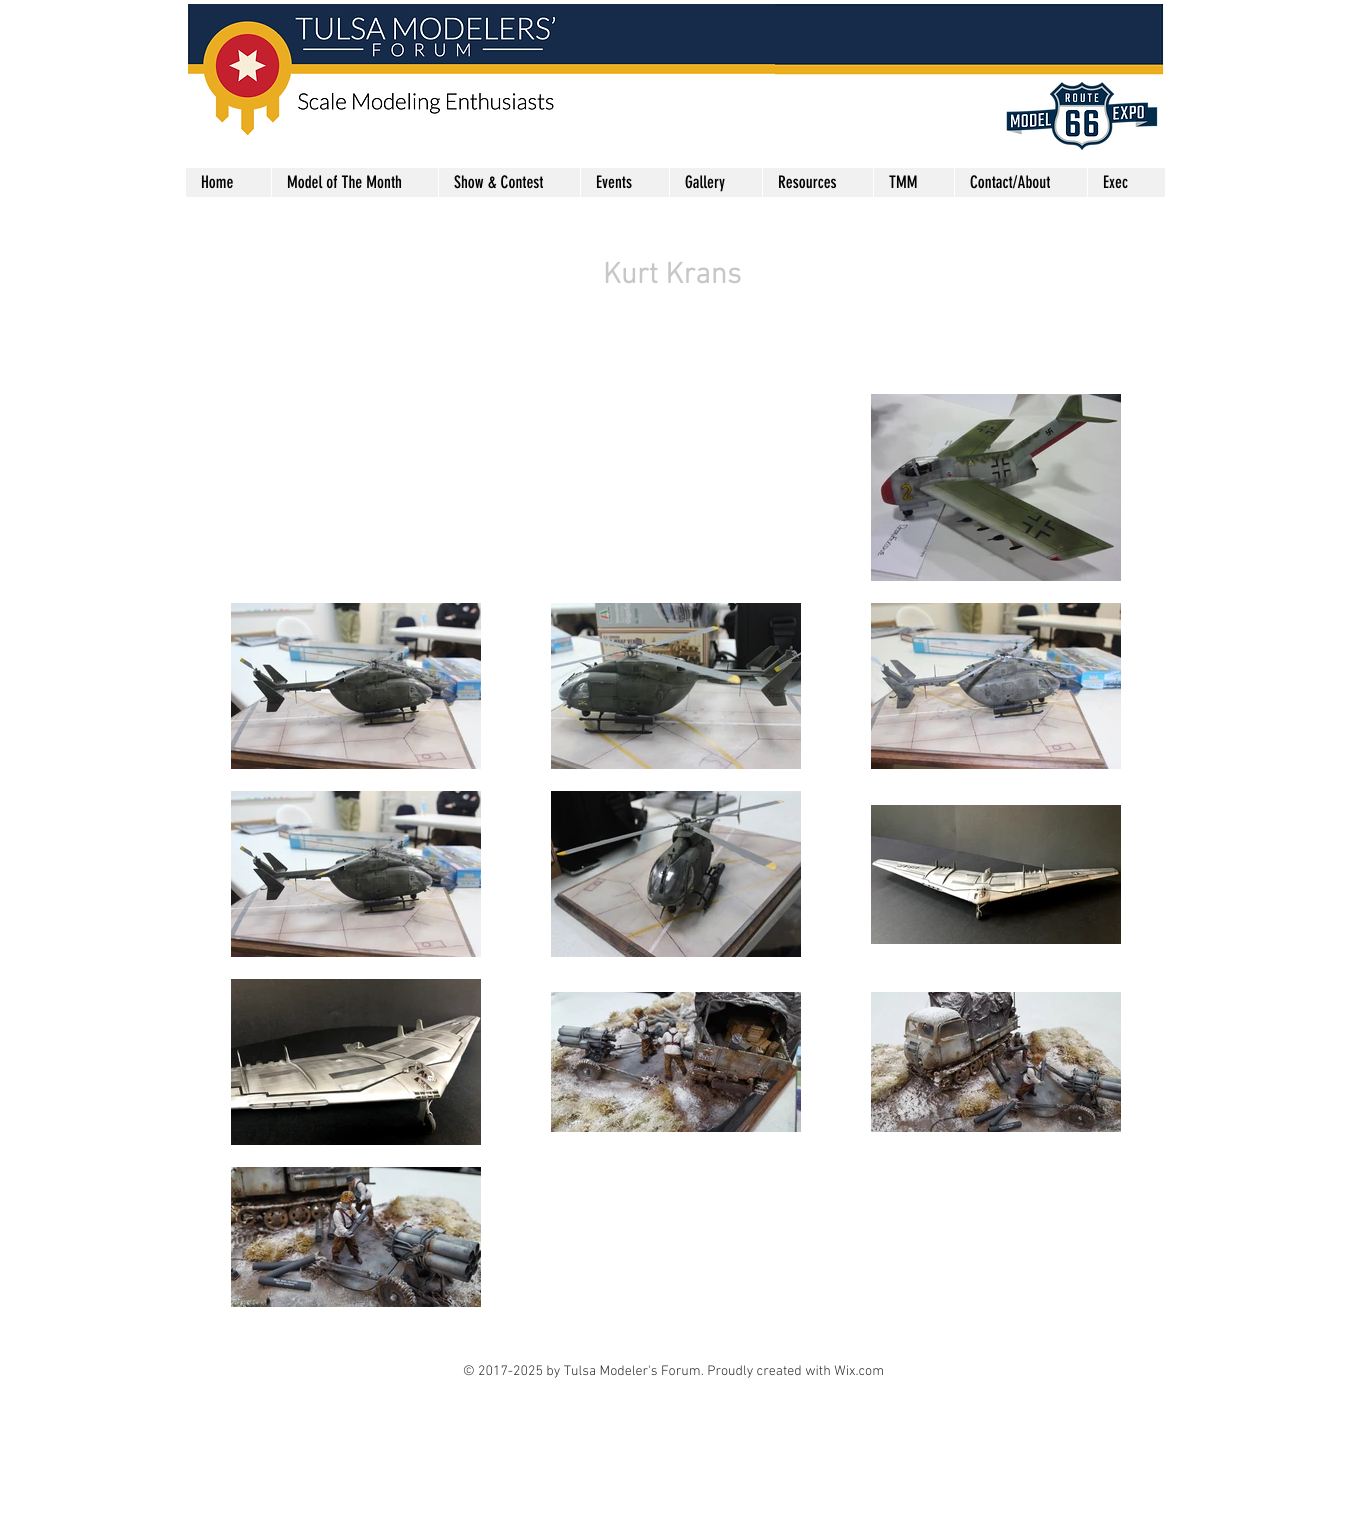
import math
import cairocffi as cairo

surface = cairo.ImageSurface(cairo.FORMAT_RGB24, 1352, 1523)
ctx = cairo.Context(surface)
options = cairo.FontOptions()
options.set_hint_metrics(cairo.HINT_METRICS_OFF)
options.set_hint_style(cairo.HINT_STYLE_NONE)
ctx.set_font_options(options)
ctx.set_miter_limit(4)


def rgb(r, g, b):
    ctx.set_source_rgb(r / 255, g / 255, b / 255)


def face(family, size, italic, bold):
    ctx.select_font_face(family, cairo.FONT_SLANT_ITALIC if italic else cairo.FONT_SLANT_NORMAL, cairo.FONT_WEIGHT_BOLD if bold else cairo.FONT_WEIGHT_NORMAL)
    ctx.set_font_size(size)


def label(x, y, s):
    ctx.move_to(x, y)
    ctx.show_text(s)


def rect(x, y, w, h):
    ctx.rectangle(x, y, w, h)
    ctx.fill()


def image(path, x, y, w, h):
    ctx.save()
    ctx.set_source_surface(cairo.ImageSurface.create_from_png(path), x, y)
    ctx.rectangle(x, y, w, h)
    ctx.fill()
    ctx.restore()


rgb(255, 255, 255)
ctx.paint()
image('image0.png', 187, 4, 588, 132)
image('image1.png', 775, 4, 389, 71)
image('image2.png', 1006, 82, 152, 68)
rgb(241, 241, 241)
rect(186, 168, 979, 29)
face('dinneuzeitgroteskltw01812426', 17, 0, 0)
rgb(0, 0, 0)
label(201, 188, 'Home')
rgb(255, 255, 255)
rect(271, 168, 1, 29)
rgb(0, 0, 0)
label(287, 188, 'Model of The Month')
rgb(255, 255, 255)
rect(438, 168, 1, 29)
rgb(0, 0, 0)
label(454, 188, 'Show & Contest')
rgb(255, 255, 255)
rect(580, 168, 1, 29)
rgb(0, 0, 0)
label(596, 188, 'Events')
rgb(255, 255, 255)
rect(669, 168, 1, 29)
rgb(0, 0, 0)
label(685, 188, 'Gallery')
rgb(255, 255, 255)
rect(762, 168, 1, 29)
rgb(0, 0, 0)
label(778, 188, 'Resources')
rgb(255, 255, 255)
rect(873, 168, 1, 29)
rgb(0, 0, 0)
label(889, 188, 'TMM')
rgb(255, 255, 255)
rect(954, 168, 1, 29)
rgb(0, 0, 0)
label(970, 188, 'Contact/About')
rgb(255, 255, 255)
rect(1087, 168, 1, 29)
rgb(0, 0, 0)
label(1103, 188, 'Exec')
face('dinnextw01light', 30, 0, 1)
rgb(199, 199, 199)
label(603, 283, 'Kurt Krans')
image('image3.png', 871, 394, 250, 187)
image('image4.png', 231, 603, 250, 166)
image('image5.png', 551, 603, 250, 166)
image('image6.png', 871, 603, 250, 166)
image('image4.png', 231, 791, 250, 166)
image('image7.png', 551, 791, 250, 166)
image('image8.png', 871, 805, 250, 139)
image('image9.png', 231, 979, 250, 166)
image('image10.png', 551, 992, 250, 140)
image('image11.png', 871, 992, 250, 140)
image('image12.png', 231, 1167, 250, 140)
face('dinnextw01light Light', 14, 0, 0)
rgb(47, 46, 46)
label(463, 1375, '© 2017-2025 by Tulsa Modeler\'s Forum. Proudly created with Wix.com')
surface.write_to_png('render.png')
